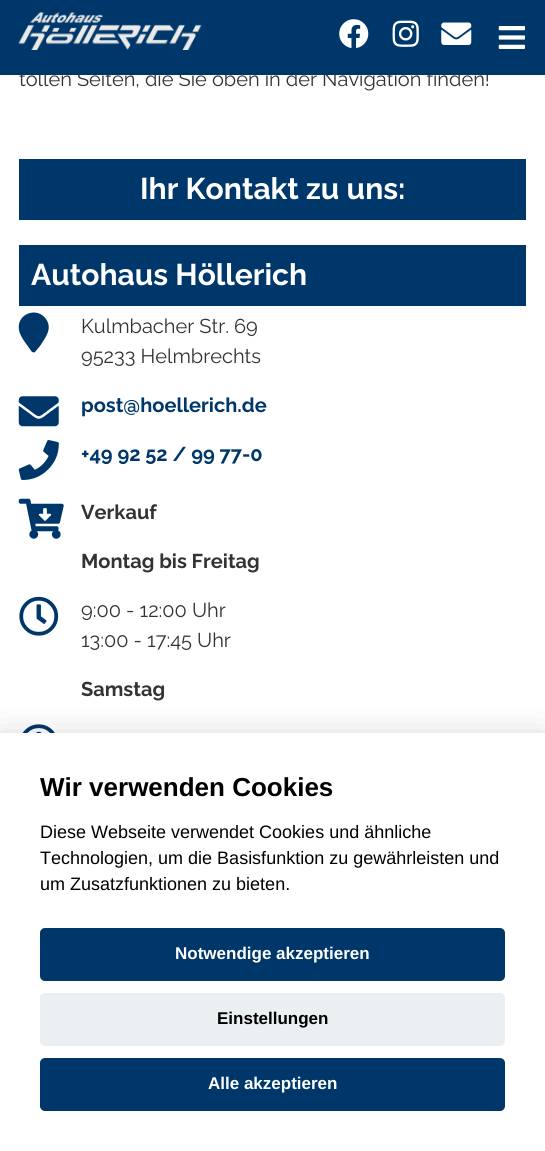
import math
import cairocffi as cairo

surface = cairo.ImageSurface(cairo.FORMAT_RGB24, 545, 1151)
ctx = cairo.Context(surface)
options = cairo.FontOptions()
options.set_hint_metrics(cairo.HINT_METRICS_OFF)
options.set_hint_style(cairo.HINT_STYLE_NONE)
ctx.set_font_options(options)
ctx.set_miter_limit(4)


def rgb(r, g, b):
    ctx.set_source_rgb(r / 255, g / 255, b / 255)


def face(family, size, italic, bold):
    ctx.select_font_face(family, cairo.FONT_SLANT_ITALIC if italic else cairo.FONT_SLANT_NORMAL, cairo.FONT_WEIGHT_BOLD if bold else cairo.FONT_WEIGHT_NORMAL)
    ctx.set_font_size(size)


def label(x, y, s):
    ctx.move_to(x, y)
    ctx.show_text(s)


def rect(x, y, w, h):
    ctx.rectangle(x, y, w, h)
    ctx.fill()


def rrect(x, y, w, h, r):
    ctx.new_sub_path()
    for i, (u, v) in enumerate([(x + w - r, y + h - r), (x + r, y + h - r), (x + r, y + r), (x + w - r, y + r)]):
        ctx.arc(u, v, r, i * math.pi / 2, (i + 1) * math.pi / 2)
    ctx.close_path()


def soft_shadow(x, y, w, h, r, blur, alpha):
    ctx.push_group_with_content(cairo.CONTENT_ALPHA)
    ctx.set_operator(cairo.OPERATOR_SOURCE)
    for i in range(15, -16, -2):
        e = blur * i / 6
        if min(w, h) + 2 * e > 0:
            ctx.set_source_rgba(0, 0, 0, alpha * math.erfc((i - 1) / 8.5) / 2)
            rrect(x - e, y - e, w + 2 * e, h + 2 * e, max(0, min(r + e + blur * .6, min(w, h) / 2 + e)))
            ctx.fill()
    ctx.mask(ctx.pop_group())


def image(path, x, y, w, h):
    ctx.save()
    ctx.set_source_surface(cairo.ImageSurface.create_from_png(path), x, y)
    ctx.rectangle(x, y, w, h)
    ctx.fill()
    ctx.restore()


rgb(255, 255, 255)
ctx.paint()
face('Raleway', 20, 0, 0)
rgb(51, 51, 51)
label(19, 86, 'tollen Seiten, die Sie oben in der Navigation finden!')
rgb(0, 55, 107)
rect(0, 0, 545, 75)
image('image0.png', 18, 12, 184, 38)
image('image1.png', 339, 19, 30, 29)
image('image2.png', 392, 20, 27, 27)
image('image3.png', 441, 22, 31, 23)
image('image4.png', 498, 26, 27, 23)
rect(19, 159, 507, 61)
face('Raleway', 30, 0, 1)
rgb(255, 255, 255)
label(140, 199, 'Ihr Kontakt zu uns:')
rgb(0, 55, 107)
rect(19, 245, 507, 61)
rgb(255, 255, 255)
label(31, 285, 'Autohaus Höllerich')
rgb(0, 55, 107)
ctx.new_path()
ctx.move_to(32, 352)
ctx.curve_to(28, 346, 20, 337, 19, 330)
ctx.curve_to(16, 314, 37, 306, 46, 319)
ctx.curve_to(53, 329, 45, 338, 40, 346)
ctx.line_to(35, 352)
ctx.curve_to(34, 353, 33, 352, 32, 352)
ctx.close_path()
ctx.fill()
face('Raleway', 20, 0, 0)
rgb(51, 51, 51)
label(81, 333, 'Kulmbacher Str. 69')
label(81, 363, '95233 Helmbrechts')
image('image5.png', 18, 396, 41, 31)
face('Raleway', 20, 0, 1)
rgb(0, 55, 107)
label(81, 412, 'post@hoellerich.de')
image('image6.png', 18, 440, 41, 40)
label(81, 461, '+49 92 52 / 99 77-0')
image('image7.png', 18, 498, 46, 41)
rgb(51, 51, 51)
label(81, 519, 'Verkauf')
label(81, 568, 'Montag bis Freitag')
image('image8.png', 19, 596, 40, 40)
face('Raleway', 20, 0, 0)
label(81, 617, '9:00 - 12:00 Uhr')
label(81, 647, '13:00 - 17:45 Uhr')
face('Raleway', 20, 0, 1)
label(81, 696, 'Samstag')
image('image9.png', 22, 724, 33, 9)
rgb(2, 2, 3)
soft_shadow(0, 745, 545, 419, 0, 19, 0.28)
rgb(255, 255, 255)
rect(0, 733, 545, 418)
face('Liberation Sans', 26, 0, 1)
rgb(0, 0, 0)
label(40, 796, 'Wir verwenden Cookies')
face('Liberation Sans', 18, 0, 0)
label(40, 838, 'Diese Webseite verwendet Cookies und ähnliche')
label(40, 864, 'Technologien, um die Basisfunktion zu gewährleisten und')
label(40, 890, 'um Zusatzfunktionen zu bieten.')
rgb(0, 55, 107)
rrect(40, 928, 465, 53, 5)
ctx.fill()
face('Liberation Sans', 17, 0, 1)
rgb(255, 255, 255)
label(175, 959, 'Notwendige akzeptieren')
rgb(234, 239, 242)
rrect(40, 993, 465, 53, 5)
ctx.fill()
rgb(0, 0, 0)
label(217, 1024, 'Einstellungen')
rgb(0, 55, 107)
rrect(40, 1058, 465, 53, 5)
ctx.fill()
rgb(255, 255, 255)
label(208, 1089, 'Alle akzeptieren')
surface.write_to_png('render.png')
